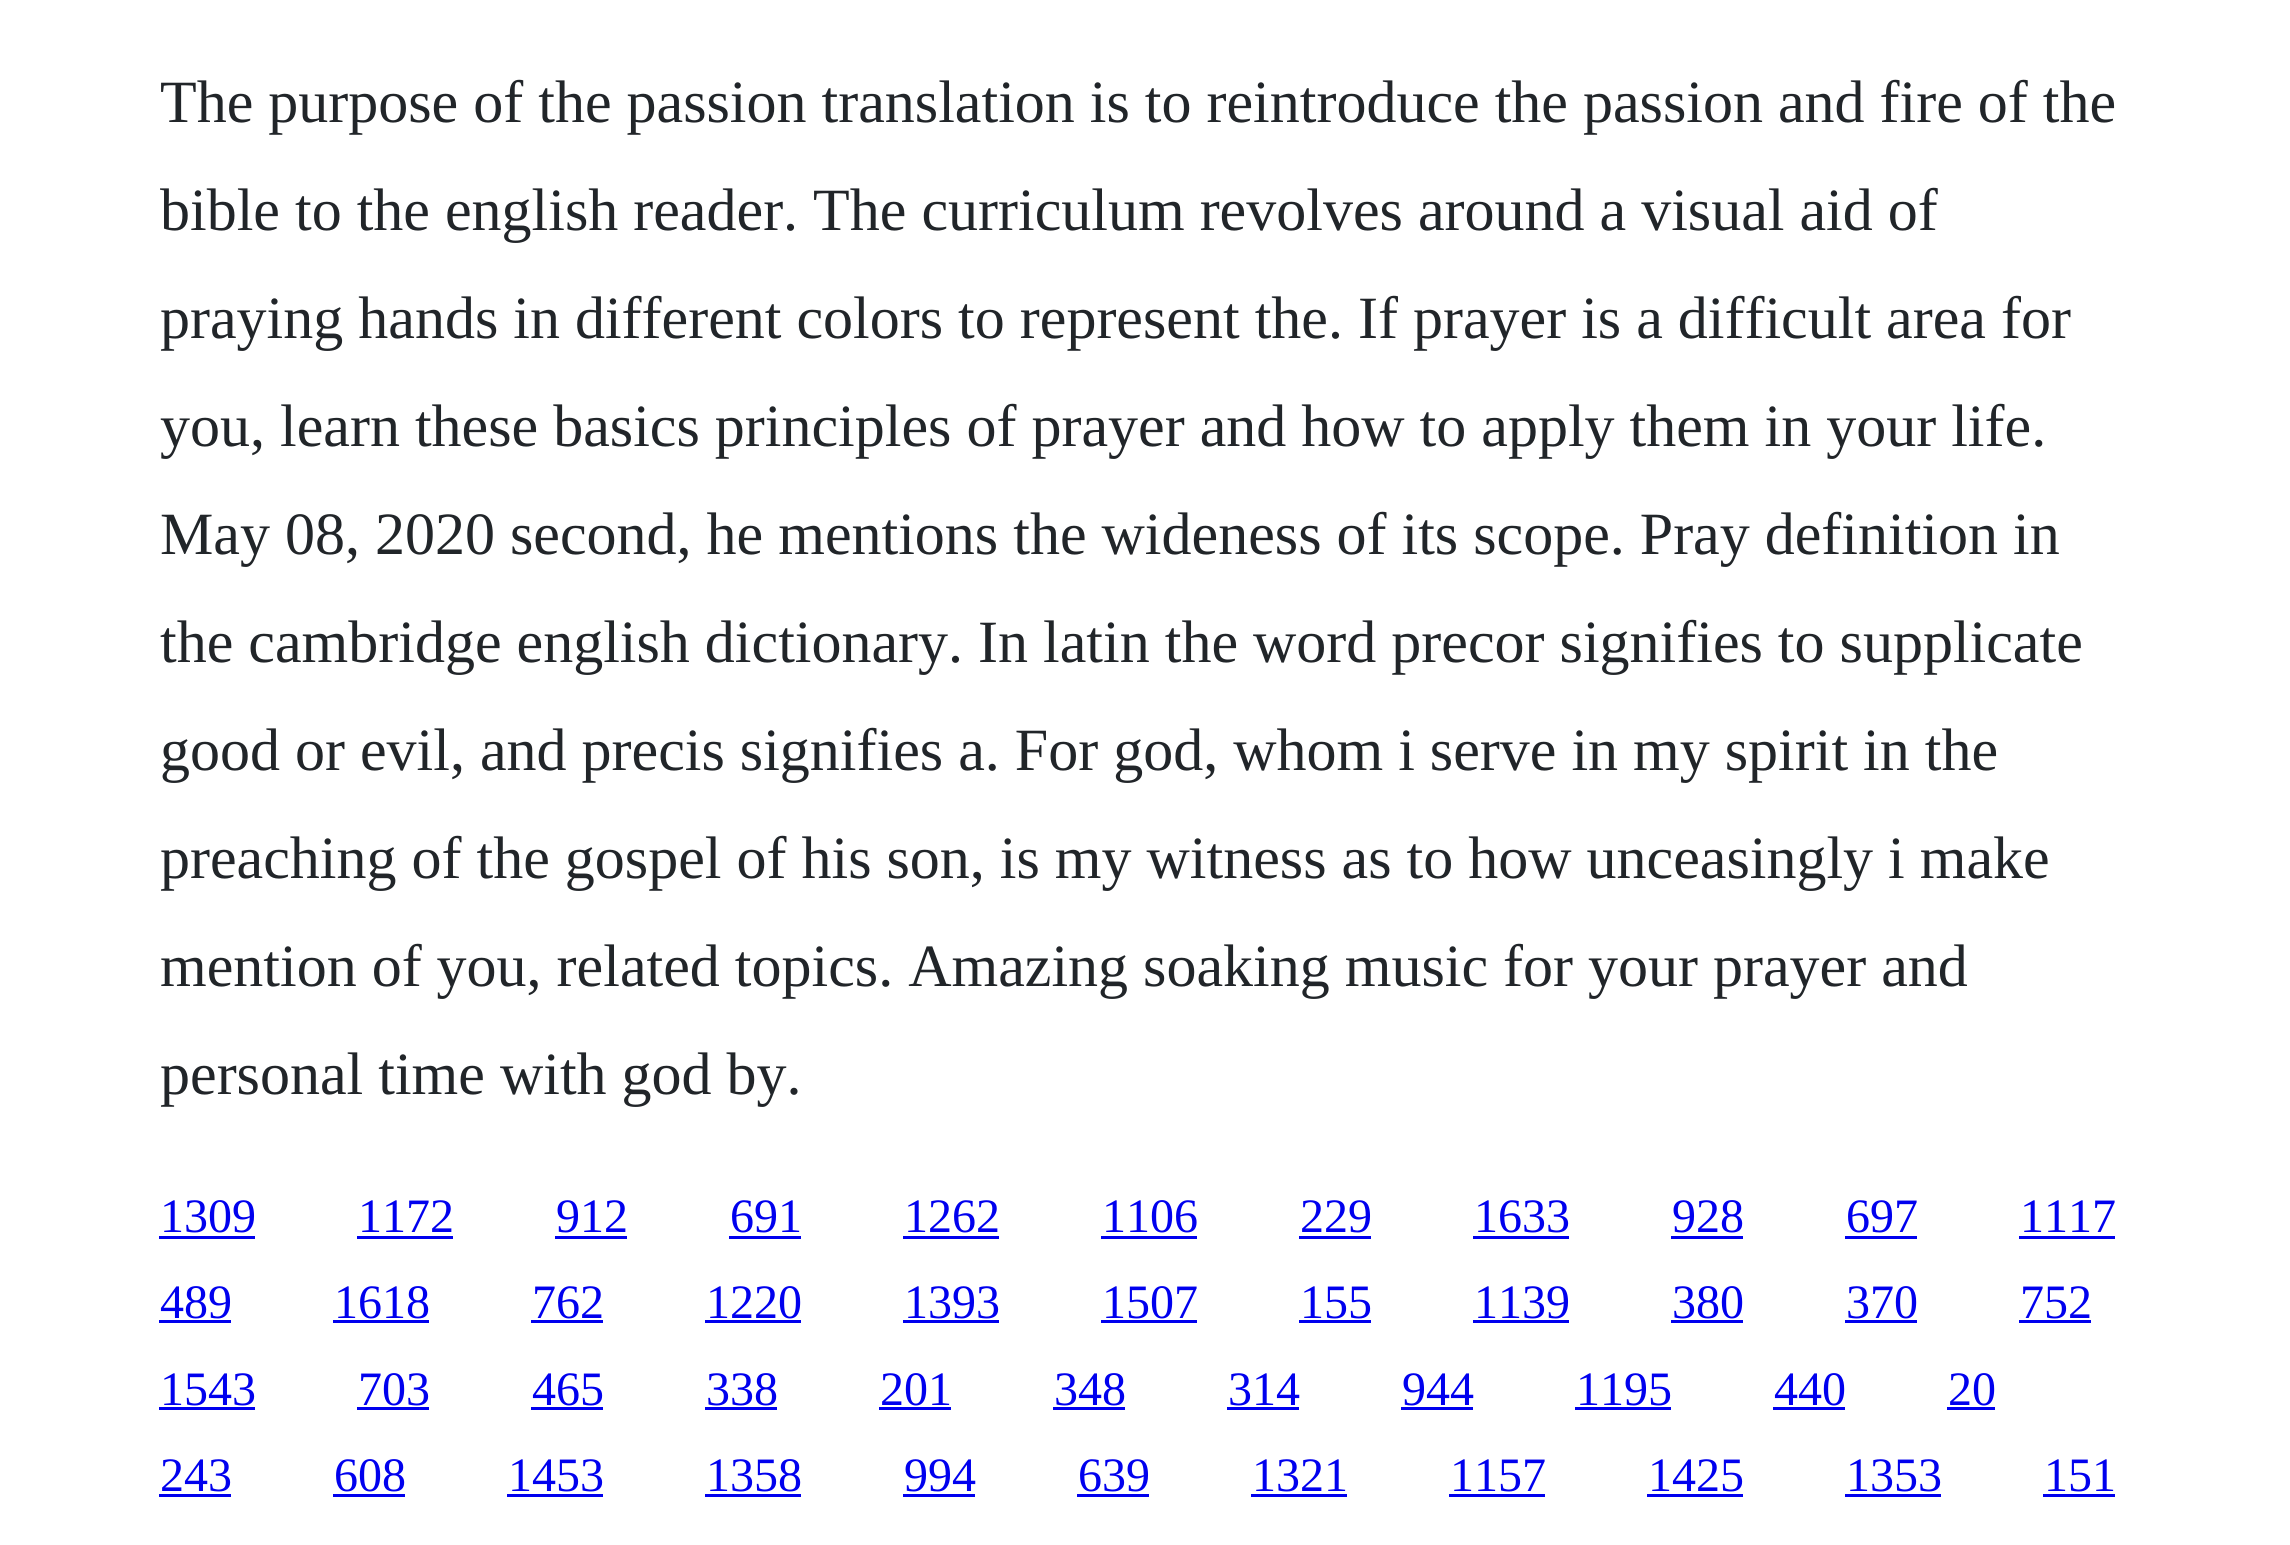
import math
import cairocffi as cairo

surface = cairo.ImageSurface(cairo.FORMAT_RGB24, 2290, 1545)
ctx = cairo.Context(surface)
options = cairo.FontOptions()
options.set_hint_metrics(cairo.HINT_METRICS_OFF)
options.set_hint_style(cairo.HINT_STYLE_NONE)
ctx.set_font_options(options)
ctx.set_miter_limit(4)


def rgb(r, g, b):
    ctx.set_source_rgb(r / 255, g / 255, b / 255)


def face(family, size, italic, bold):
    ctx.select_font_face(family, cairo.FONT_SLANT_ITALIC if italic else cairo.FONT_SLANT_NORMAL, cairo.FONT_WEIGHT_BOLD if bold else cairo.FONT_WEIGHT_NORMAL)
    ctx.set_font_size(size)


def label(x, y, s):
    ctx.move_to(x, y)
    ctx.show_text(s)


def rect(x, y, w, h):
    ctx.rectangle(x, y, w, h)
    ctx.fill()


rgb(255, 255, 255)
ctx.paint()
face('Liberation Serif', 60, 0, 0)
rgb(33, 37, 41)
label(160, 122, 'The purpose of the passion translation is to reintroduce the passion and fire of the')
label(160, 230, 'bible to the english reader. The curriculum revolves around a visual aid of')
label(160, 338, 'praying hands in different colors to represent the. If prayer is a difficult area for')
label(160, 446, 'you, learn these basics principles of prayer and how to apply them in your life.')
label(160, 554, 'May 08, 2020 second, he mentions the wideness of its scope. Pray definition in')
label(160, 662, 'the cambridge english dictionary. In latin the word precor signifies to supplicate')
label(160, 770, 'good or evil, and precis signifies a. For god, whom i serve in my spirit in the')
label(160, 878, 'preaching of the gospel of his son, is my witness as to how unceasingly i make')
label(160, 986, 'mention of you, related topics. Amazing soaking music for your prayer and')
label(160, 1094, 'personal time with god by.')
face('Liberation Serif', 48, 0, 0)
rgb(0, 0, 238)
label(160, 1232, '1309')
rect(159, 1236, 96, 3)
label(358, 1232, '1172')
rect(357, 1236, 96, 3)
label(556, 1232, '912')
rect(555, 1236, 72, 3)
label(730, 1232, '691')
rect(729, 1236, 72, 3)
label(904, 1232, '1262')
rect(903, 1236, 96, 3)
label(1102, 1232, '1106')
rect(1101, 1236, 96, 3)
label(1300, 1232, '229')
rect(1299, 1236, 72, 3)
label(1474, 1232, '1633')
rect(1473, 1236, 96, 3)
label(1672, 1232, '928')
rect(1671, 1236, 72, 3)
label(1846, 1232, '697')
rect(1845, 1236, 72, 3)
label(2020, 1232, '1117')
rect(2019, 1236, 96, 3)
label(160, 1318, '489')
rect(159, 1320, 72, 3)
label(334, 1318, '1618')
rect(333, 1320, 96, 3)
label(532, 1318, '762')
rect(531, 1320, 72, 3)
label(706, 1318, '1220')
rect(705, 1320, 96, 3)
label(904, 1318, '1393')
rect(903, 1320, 96, 3)
label(1102, 1318, '1507')
rect(1101, 1320, 96, 3)
label(1300, 1318, '155')
rect(1299, 1320, 72, 3)
label(1474, 1318, '1139')
rect(1473, 1320, 96, 3)
label(1672, 1318, '380')
rect(1671, 1320, 72, 3)
label(1846, 1318, '370')
rect(1845, 1320, 72, 3)
label(2020, 1318, '752')
rect(2019, 1320, 72, 3)
label(160, 1405, '1543')
rect(159, 1407, 96, 3)
label(358, 1405, '703')
rect(357, 1407, 72, 3)
label(532, 1405, '465')
rect(531, 1407, 72, 3)
label(706, 1405, '338')
rect(705, 1407, 72, 3)
label(880, 1405, '201')
rect(879, 1407, 72, 3)
label(1054, 1405, '348')
rect(1053, 1407, 72, 3)
label(1228, 1405, '314')
rect(1227, 1407, 72, 3)
label(1402, 1405, '944')
rect(1401, 1407, 72, 3)
label(1576, 1405, '1195')
rect(1575, 1407, 96, 3)
label(1774, 1405, '440')
rect(1773, 1407, 72, 3)
label(1948, 1405, '20')
rect(1947, 1407, 48, 3)
label(160, 1491, '243')
rect(159, 1494, 72, 3)
label(334, 1491, '608')
rect(333, 1494, 72, 3)
label(508, 1491, '1453')
rect(507, 1494, 96, 3)
label(706, 1491, '1358')
rect(705, 1494, 96, 3)
label(904, 1491, '994')
rect(903, 1494, 72, 3)
label(1078, 1491, '639')
rect(1077, 1494, 72, 3)
label(1252, 1491, '1321')
rect(1251, 1494, 96, 3)
label(1450, 1491, '1157')
rect(1449, 1494, 96, 3)
label(1648, 1491, '1425')
rect(1647, 1494, 96, 3)
label(1846, 1491, '1353')
rect(1845, 1494, 96, 3)
label(2044, 1491, '151')
rect(2043, 1494, 72, 3)
surface.write_to_png('render.png')
